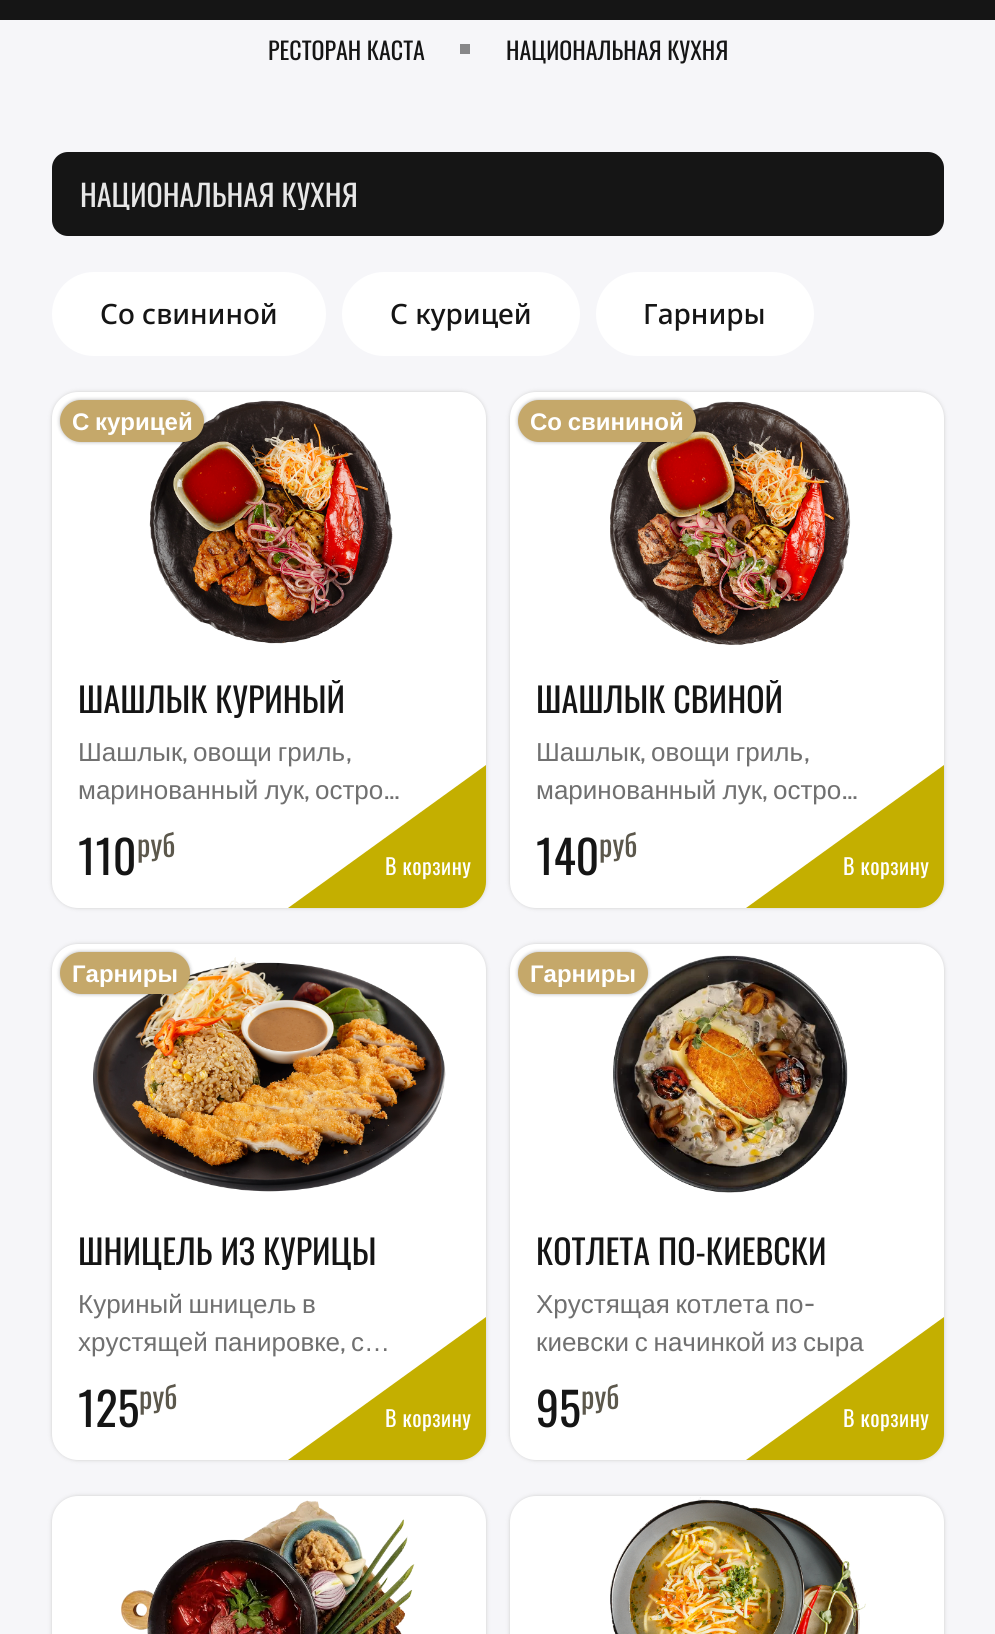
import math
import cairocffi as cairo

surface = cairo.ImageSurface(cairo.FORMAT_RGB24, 995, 1634)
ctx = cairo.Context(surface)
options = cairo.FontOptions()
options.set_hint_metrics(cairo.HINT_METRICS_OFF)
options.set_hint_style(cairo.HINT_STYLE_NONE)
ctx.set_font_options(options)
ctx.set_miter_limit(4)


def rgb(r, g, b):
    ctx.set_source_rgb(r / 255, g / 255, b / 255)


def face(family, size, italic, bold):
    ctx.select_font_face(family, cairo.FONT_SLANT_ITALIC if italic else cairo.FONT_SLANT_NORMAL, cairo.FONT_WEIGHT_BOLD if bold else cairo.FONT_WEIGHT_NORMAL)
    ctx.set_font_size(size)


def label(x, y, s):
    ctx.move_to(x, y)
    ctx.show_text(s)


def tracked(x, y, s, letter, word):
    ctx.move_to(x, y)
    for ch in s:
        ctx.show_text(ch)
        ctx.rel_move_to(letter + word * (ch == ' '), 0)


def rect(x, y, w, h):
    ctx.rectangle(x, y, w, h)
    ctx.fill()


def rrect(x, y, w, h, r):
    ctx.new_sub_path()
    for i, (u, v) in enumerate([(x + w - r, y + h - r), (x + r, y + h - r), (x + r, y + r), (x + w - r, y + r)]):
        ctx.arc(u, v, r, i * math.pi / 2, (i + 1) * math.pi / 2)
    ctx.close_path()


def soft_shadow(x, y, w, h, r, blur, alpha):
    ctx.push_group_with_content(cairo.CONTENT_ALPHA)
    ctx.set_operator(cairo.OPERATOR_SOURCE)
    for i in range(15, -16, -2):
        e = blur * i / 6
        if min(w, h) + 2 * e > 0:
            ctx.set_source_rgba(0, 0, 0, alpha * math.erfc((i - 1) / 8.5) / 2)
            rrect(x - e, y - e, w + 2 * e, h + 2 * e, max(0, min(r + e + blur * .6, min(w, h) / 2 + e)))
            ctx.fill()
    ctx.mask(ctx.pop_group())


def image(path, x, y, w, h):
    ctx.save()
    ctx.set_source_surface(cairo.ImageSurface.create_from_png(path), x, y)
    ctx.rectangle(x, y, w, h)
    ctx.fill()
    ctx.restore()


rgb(246, 246, 249)
ctx.paint()
rgb(21, 21, 21)
rect(0, 0, 995, 20)
face('Oswald', 24, 0, 0)
label(268, 60, 'РЕСТОРАН КАСТА')
rgb(135, 135, 137)
rect(460, 44, 10, 10)
rgb(21, 21, 21)
label(506, 60, 'НАЦИОНАЛЬНАЯ КУХНЯ')
rrect(52, 152, 892, 84, 16)
ctx.fill()
ctx.save()
ctx.rectangle(80, 178, 836, 32)
ctx.clip()
face('Oswald', 30, 0, 0)
rgb(231, 231, 231)
label(80, 207, 'НАЦИОНАЛЬНАЯ КУХНЯ')
ctx.restore()
rgb(255, 255, 255)
rrect(52, 272, 274, 84, 42)
ctx.fill()
face('Noto Sans Medium', 28, 0, 0)
rgb(21, 21, 21)
label(100, 324, 'Со свининой')
rgb(255, 255, 255)
rrect(342, 272, 238, 84, 42)
ctx.fill()
rgb(21, 21, 21)
label(390, 324, 'С курицей')
rgb(255, 255, 255)
rrect(596, 272, 218, 84, 42)
ctx.fill()
rgb(21, 21, 21)
label(643, 324, 'Гарниры')
rgb(204, 204, 204)
soft_shadow(52, 392, 434, 516, 26, 2, 1)
rgb(255, 255, 255)
rrect(52, 392, 434, 516, 26)
ctx.fill()
image('image0.png', 149, 400, 244, 244)
rgb(0, 0, 0)
soft_shadow(60, 400, 144, 42, 21, 2, 0.3)
rgb(197, 168, 106)
rrect(60, 400, 144, 42, 21)
ctx.fill()
face('Liberation Sans', 24, 0, 1)
rgb(255, 255, 255)
tracked(72, 430, 'С курицей', 0, -1)
ctx.save()
ctx.rectangle(78, 680, 382, 38)
ctx.clip()
face('Oswald', 34, 0, 0)
rgb(21, 21, 21)
label(78, 713, 'ШАШЛЫК КУРИНЫЙ')
ctx.restore()
face('Liberation Sans', 26, 0, 0)
rgb(112, 112, 112)
label(78, 761, 'Шашлык')
face('Cabin', 26, 0, 0)
label(182, 761, ',')
face('Liberation Sans', 26, 0, 0)
tracked(193, 761, 'овощи гриль', 0, -1)
face('Cabin', 26, 0, 0)
label(346, 761, ',')
face('Liberation Sans', 26, 0, 0)
tracked(78, 799, 'маринованный лук', 0, -1)
face('Cabin', 26, 0, 0)
label(304, 799, ',')
face('Liberation Sans', 26, 0, 0)
label(315, 799, 'остро')
face('Cabin', 26, 0, 0)
label(384, 799, '…')
face('Oswald', 46, 0, 0)
rgb(21, 21, 21)
label(78, 875, '110')
face('Oswald', 30, 0, 0)
rgb(92, 88, 76)
label(137, 857, 'руб')
rgb(233, 230, 237)
ctx.new_path()
ctx.move_to(406, 876)
ctx.line_to(480, 876)
ctx.curve_to(483.5, 876, 486, 878.5, 486, 882)
ctx.curve_to(486, 896.5, 474.5, 908, 460, 908)
ctx.line_to(406, 908)
ctx.curve_to(402.5, 908, 400, 905.5, 400, 902)
ctx.line_to(400, 882)
ctx.curve_to(400, 878.5, 402.5, 876, 406, 876)
ctx.close_path()
ctx.fill()
rgb(196, 175, 0)
ctx.new_path()
ctx.move_to(486, 765)
ctx.line_to(486, 882)
ctx.curve_to(486, 896, 474, 908, 460, 908)
ctx.line_to(288, 908)
ctx.close_path()
ctx.fill()
face('Oswald', 22, 0, 0)
rgb(255, 255, 255)
tracked(385, 875, 'В корзину', 0.5, 0)
rgb(204, 204, 204)
soft_shadow(510, 392, 434, 516, 26, 2, 1)
rgb(255, 255, 255)
rrect(510, 392, 434, 516, 26)
ctx.fill()
image('image1.png', 610, 401, 241, 244)
rgb(0, 0, 0)
soft_shadow(518, 400, 178, 42, 21, 2, 0.3)
rgb(197, 168, 106)
rrect(518, 400, 178, 42, 21)
ctx.fill()
face('Liberation Sans', 24, 0, 1)
rgb(255, 255, 255)
tracked(530, 430, 'Со свининой', 0, -1)
ctx.save()
ctx.rectangle(536, 680, 382, 38)
ctx.clip()
face('Oswald', 34, 0, 0)
rgb(21, 21, 21)
label(536, 713, 'ШАШЛЫК СВИНОЙ')
ctx.restore()
face('Liberation Sans', 26, 0, 0)
rgb(112, 112, 112)
label(536, 761, 'Шашлык')
face('Cabin', 26, 0, 0)
label(640, 761, ',')
face('Liberation Sans', 26, 0, 0)
tracked(651, 761, 'овощи гриль', 0, -1)
face('Cabin', 26, 0, 0)
label(804, 761, ',')
face('Liberation Sans', 26, 0, 0)
tracked(536, 799, 'маринованный лук', 0, -1)
face('Cabin', 26, 0, 0)
label(762, 799, ',')
face('Liberation Sans', 26, 0, 0)
label(773, 799, 'остро')
face('Cabin', 26, 0, 0)
label(842, 799, '…')
face('Oswald', 46, 0, 0)
rgb(21, 21, 21)
label(536, 875, '140')
face('Oswald', 30, 0, 0)
rgb(92, 88, 76)
label(599, 857, 'руб')
rgb(233, 230, 237)
ctx.new_path()
ctx.move_to(864, 876)
ctx.line_to(938, 876)
ctx.curve_to(941.5, 876, 944, 878.5, 944, 882)
ctx.curve_to(944, 896.5, 932.5, 908, 918, 908)
ctx.line_to(864, 908)
ctx.curve_to(860.5, 908, 858, 905.5, 858, 902)
ctx.line_to(858, 882)
ctx.curve_to(858, 878.5, 860.5, 876, 864, 876)
ctx.close_path()
ctx.fill()
rgb(196, 175, 0)
ctx.new_path()
ctx.move_to(944, 765)
ctx.line_to(944, 882)
ctx.curve_to(944, 896, 932, 908, 918, 908)
ctx.line_to(746, 908)
ctx.close_path()
ctx.fill()
face('Oswald', 22, 0, 0)
rgb(255, 255, 255)
tracked(843, 875, 'В корзину', 0.5, 0)
rgb(204, 204, 204)
soft_shadow(52, 944, 434, 516, 26, 2, 1)
rgb(255, 255, 255)
rrect(52, 944, 434, 516, 26)
ctx.fill()
image('image2.png', 93, 957, 353, 235)
rgb(0, 0, 0)
soft_shadow(60, 952, 130, 42, 21, 2, 0.3)
rgb(197, 168, 106)
rrect(60, 952, 130, 42, 21)
ctx.fill()
face('Liberation Sans', 24, 0, 1)
rgb(255, 255, 255)
label(72, 982, 'Гарниры')
face('Oswald', 34, 0, 0)
rgb(21, 21, 21)
label(78, 1265, 'ШНИЦЕЛЬ ИЗ КУРИЦЫ')
face('Liberation Sans', 26, 0, 0)
rgb(112, 112, 112)
tracked(78, 1313, 'Куриный шницель в', 0, -1.5)
tracked(78, 1351, 'хрустящей панировке', 0, -1)
face('Cabin', 26, 0, 0)
label(340, 1351, ',')
face('Liberation Sans', 26, 0, 0)
label(351, 1351, 'с…')
face('Oswald', 46, 0, 0)
rgb(21, 21, 21)
label(78, 1427, '125')
face('Oswald', 30, 0, 0)
rgb(92, 88, 76)
label(139, 1409, 'руб')
rgb(233, 230, 237)
ctx.new_path()
ctx.move_to(406, 1428)
ctx.line_to(480, 1428)
ctx.curve_to(483.5, 1428, 486, 1430.5, 486, 1434)
ctx.curve_to(486, 1448.5, 474.5, 1460, 460, 1460)
ctx.line_to(406, 1460)
ctx.curve_to(402.5, 1460, 400, 1457.5, 400, 1454)
ctx.line_to(400, 1434)
ctx.curve_to(400, 1430.5, 402.5, 1428, 406, 1428)
ctx.close_path()
ctx.fill()
rgb(196, 175, 0)
ctx.new_path()
ctx.move_to(486, 1317)
ctx.line_to(486, 1434)
ctx.curve_to(486, 1448, 474, 1460, 460, 1460)
ctx.line_to(288, 1460)
ctx.close_path()
ctx.fill()
face('Oswald', 22, 0, 0)
rgb(255, 255, 255)
tracked(385, 1427, 'В корзину', 0.5, 0)
rgb(204, 204, 204)
soft_shadow(510, 944, 434, 516, 26, 2, 1)
rgb(255, 255, 255)
rrect(510, 944, 434, 516, 26)
ctx.fill()
image('image3.png', 613, 955, 235, 238)
rgb(0, 0, 0)
soft_shadow(518, 952, 130, 42, 21, 2, 0.3)
rgb(197, 168, 106)
rrect(518, 952, 130, 42, 21)
ctx.fill()
face('Liberation Sans', 24, 0, 1)
rgb(255, 255, 255)
label(530, 982, 'Гарниры')
face('Oswald', 34, 0, 0)
rgb(21, 21, 21)
label(536, 1265, 'КОТЛЕТА ПО-КИЕВСКИ')
face('Liberation Sans', 26, 0, 0)
rgb(112, 112, 112)
tracked(536, 1313, 'Хрустящая котлета по', 0, -1.5)
face('Cabin', 26, 0, 0)
label(804, 1313, '-')
face('Liberation Sans', 26, 0, 0)
tracked(536, 1351, 'киевски с начинкой из сыра', 0, -1.5)
face('Oswald', 46, 0, 0)
rgb(21, 21, 21)
label(536, 1427, '95')
face('Oswald', 30, 0, 0)
rgb(92, 88, 76)
label(581, 1409, 'руб')
rgb(233, 230, 237)
ctx.new_path()
ctx.move_to(864, 1428)
ctx.line_to(938, 1428)
ctx.curve_to(941.5, 1428, 944, 1430.5, 944, 1434)
ctx.curve_to(944, 1448.5, 932.5, 1460, 918, 1460)
ctx.line_to(864, 1460)
ctx.curve_to(860.5, 1460, 858, 1457.5, 858, 1454)
ctx.line_to(858, 1434)
ctx.curve_to(858, 1430.5, 860.5, 1428, 864, 1428)
ctx.close_path()
ctx.fill()
rgb(196, 175, 0)
ctx.new_path()
ctx.move_to(944, 1317)
ctx.line_to(944, 1434)
ctx.curve_to(944, 1448, 932, 1460, 918, 1460)
ctx.line_to(746, 1460)
ctx.close_path()
ctx.fill()
face('Oswald', 22, 0, 0)
rgb(255, 255, 255)
tracked(843, 1427, 'В корзину', 0.5, 0)
rgb(204, 204, 204)
soft_shadow(52, 1496, 434, 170, 26, 2, 1)
rgb(255, 255, 255)
rrect(52, 1496, 434, 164, 26)
ctx.fill()
image('image4.png', 121, 1500, 294, 134)
rgb(204, 204, 204)
soft_shadow(510, 1496, 434, 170, 26, 2, 1)
rgb(255, 255, 255)
rrect(510, 1496, 434, 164, 26)
ctx.fill()
image('image5.png', 610, 1497, 256, 137)
surface.write_to_png('render.png')
